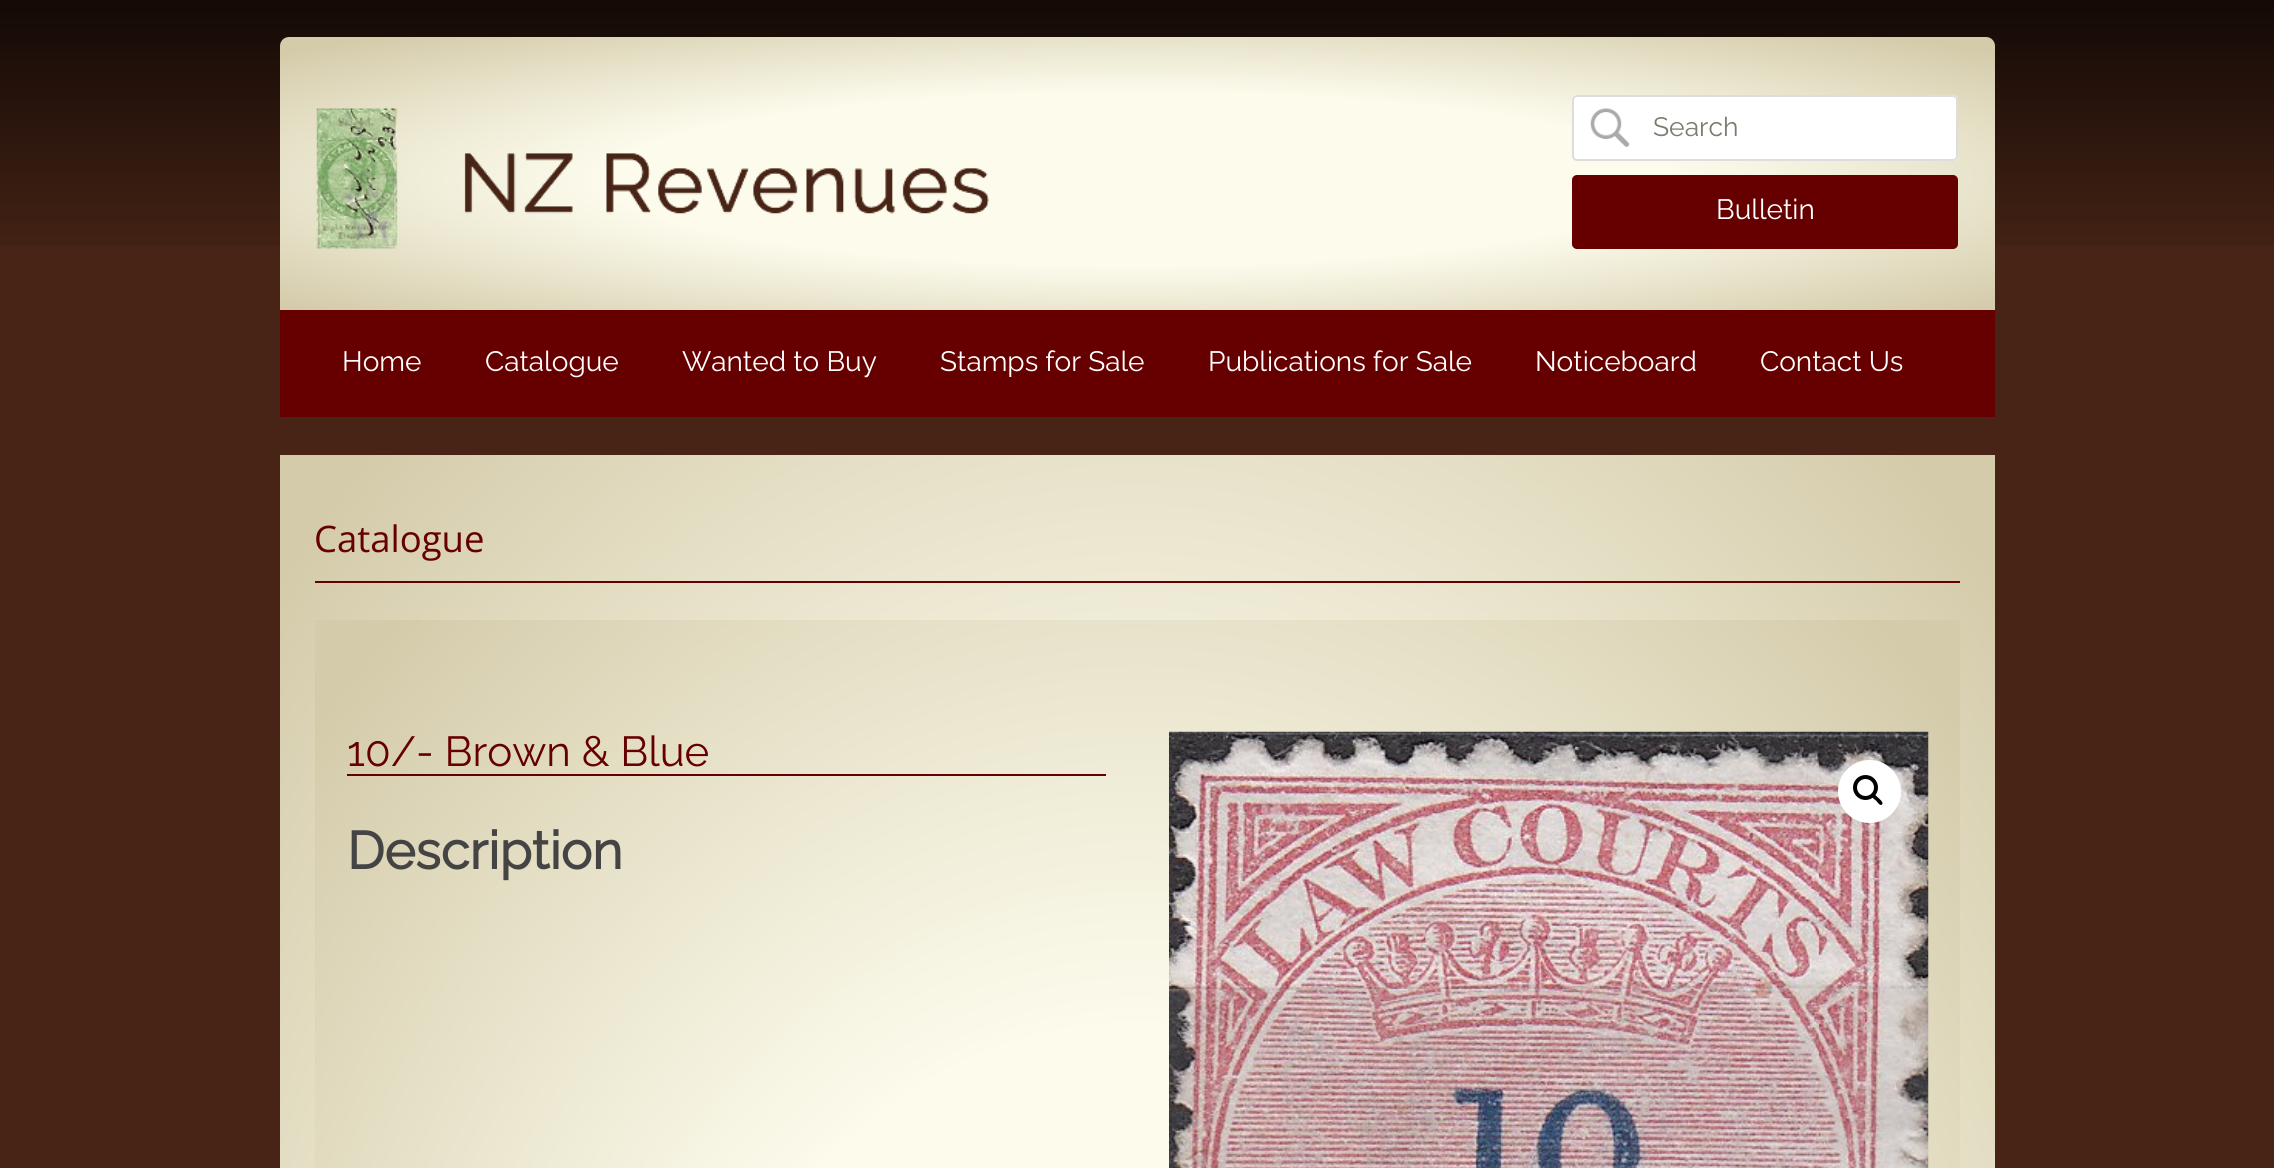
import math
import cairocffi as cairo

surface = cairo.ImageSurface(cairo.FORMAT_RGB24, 2274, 1168)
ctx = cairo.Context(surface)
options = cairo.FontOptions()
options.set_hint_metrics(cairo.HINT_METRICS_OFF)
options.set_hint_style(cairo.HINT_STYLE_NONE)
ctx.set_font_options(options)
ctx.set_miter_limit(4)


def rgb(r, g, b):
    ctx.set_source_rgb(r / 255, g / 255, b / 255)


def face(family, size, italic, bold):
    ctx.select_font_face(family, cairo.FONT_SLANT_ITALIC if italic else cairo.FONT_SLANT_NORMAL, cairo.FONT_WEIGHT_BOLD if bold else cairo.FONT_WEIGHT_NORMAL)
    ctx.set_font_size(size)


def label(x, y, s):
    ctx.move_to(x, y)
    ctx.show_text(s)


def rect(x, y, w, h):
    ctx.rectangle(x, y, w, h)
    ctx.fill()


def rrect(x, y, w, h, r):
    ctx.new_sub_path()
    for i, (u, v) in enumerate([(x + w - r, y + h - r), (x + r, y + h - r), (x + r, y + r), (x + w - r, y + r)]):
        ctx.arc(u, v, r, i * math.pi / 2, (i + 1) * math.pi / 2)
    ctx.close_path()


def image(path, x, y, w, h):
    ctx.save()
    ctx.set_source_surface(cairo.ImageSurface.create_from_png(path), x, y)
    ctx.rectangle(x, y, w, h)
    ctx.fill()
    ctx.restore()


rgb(71, 36, 21)
ctx.paint()
image('image0.png', 0, 0, 2274, 245)
ctx.save()
rrect(280, 37, 1715, 283, 9)
ctx.clip()
gradient = cairo.RadialGradient(0, 0, 0, 0, 0, 1)
gradient.set_matrix(cairo.Matrix(1 / 1210, 0, 0, 1 / 198, -1 * 1138 / 1210, -1 * -101 / 198))
gradient.add_color_stop_rgba(0, 0.988, 0.984, 0.925, 1)
gradient.add_color_stop_rgba(0.44, 0.988, 0.984, 0.925, 1)
gradient.add_color_stop_rgba(0.95, 0.831, 0.796, 0.667, 1)
gradient.add_color_stop_rgba(1, 0.831, 0.796, 0.667, 1)
ctx.set_source(gradient)
rect(282, 37, 1711, 2)
gradient = cairo.RadialGradient(0, 0, 0, 0, 0, 1)
gradient.set_matrix(cairo.Matrix(1 / 1210, 0, 0, 1 / 198, -1 * -574 / 1210, -1 * 179 / 198))
gradient.add_color_stop_rgba(0, 0.988, 0.984, 0.925, 1)
gradient.add_color_stop_rgba(0.44, 0.988, 0.984, 0.925, 1)
gradient.add_color_stop_rgba(0.95, 0.831, 0.796, 0.667, 1)
gradient.add_color_stop_rgba(1, 0.831, 0.796, 0.667, 1)
ctx.set_source(gradient)
rect(280, 39, 2, 271)
gradient = cairo.RadialGradient(0, 0, 0, 0, 0, 1)
gradient.set_matrix(cairo.Matrix(1 / 1210, 0, 0, 1 / 198, -1 * 1138 / 1210, -1 * 179 / 198))
gradient.add_color_stop_rgba(0, 0.988, 0.984, 0.925, 1)
gradient.add_color_stop_rgba(0.44, 0.988, 0.984, 0.925, 1)
gradient.add_color_stop_rgba(0.95, 0.831, 0.796, 0.667, 1)
gradient.add_color_stop_rgba(1, 0.831, 0.796, 0.667, 1)
ctx.set_source(gradient)
rect(282, 39, 1711, 271)
gradient = cairo.RadialGradient(0, 0, 0, 0, 0, 1)
gradient.set_matrix(cairo.Matrix(1 / 1210, 0, 0, 1 / 198, -1 * 2849 / 1210, -1 * 179 / 198))
gradient.add_color_stop_rgba(0, 0.988, 0.984, 0.925, 1)
gradient.add_color_stop_rgba(0.44, 0.988, 0.984, 0.925, 1)
gradient.add_color_stop_rgba(0.95, 0.831, 0.796, 0.667, 1)
gradient.add_color_stop_rgba(1, 0.831, 0.796, 0.667, 1)
ctx.set_source(gradient)
rect(1993, 39, 2, 271)
ctx.restore()
image('image1.png', 316, 108, 673, 141)
rgb(255, 255, 255)
rrect(1572, 95, 386, 66, 5)
ctx.fill()
image('image2.png', 1590, 108, 40, 39)
rrect(1573, 96, 384, 64, 4)
rgb(221, 221, 221)
ctx.stroke()
face('Raleway Thin', 26.5, 0, 0)
rgb(125, 123, 109)
label(1653, 136, 'Search')
rgb(102, 0, 0)
rrect(1572, 175, 386, 74, 5)
ctx.fill()
face('Raleway Thin', 28, 0, 0)
rgb(255, 255, 255)
label(1716, 219, 'Bulletin')
rgb(102, 0, 0)
rect(280, 310, 1715, 107)
rgb(255, 255, 255)
label(342, 371, 'Home')
label(485, 371, 'Catalogue')
label(682, 371, 'Wanted to Buy')
label(940, 371, 'Stamps for Sale')
label(1208, 371, 'Publications for Sale')
label(1535, 371, 'Noticeboard')
label(1760, 371, 'Contact Us')
gradient = cairo.RadialGradient(0, 0, 0, 0, 0, 1)
gradient.set_matrix(cairo.Matrix(1 / 1213, 0, 0, 1 / 1669, -1 * 1138 / 1213, -1 * 1635 / 1669))
gradient.add_color_stop_rgba(0, 0.988, 0.984, 0.925, 1)
gradient.add_color_stop_rgba(0.44, 0.988, 0.984, 0.925, 1)
gradient.add_color_stop_rgba(0.95, 0.831, 0.796, 0.667, 1)
gradient.add_color_stop_rgba(1, 0.831, 0.796, 0.667, 1)
ctx.set_source(gradient)
rect(280, 455, 1715, 713)
rgb(102, 0, 0)
rect(315, 581, 1645, 2)
face('Open Sans', 36.5, 0, 0)
label(314, 552, 'Catalogue')
gradient = cairo.RadialGradient(0, 0, 0, 0, 0, 1)
gradient.set_matrix(cairo.Matrix(1 / 1163, 0, 0, 1 / 1513, -1 * 1138 / 1163, -1 * 1690 / 1513))
gradient.add_color_stop_rgba(0, 0.988, 0.984, 0.925, 1)
gradient.add_color_stop_rgba(0.44, 0.988, 0.984, 0.925, 1)
gradient.add_color_stop_rgba(0.95, 0.831, 0.796, 0.667, 1)
gradient.add_color_stop_rgba(1, 0.831, 0.796, 0.667, 1)
ctx.set_source(gradient)
rect(315, 620, 1645, 548)
rgb(102, 0, 0)
rect(347, 774, 759, 2)
face('Raleway Thin', 42, 0, 0)
label(347, 766, '10/- Brown & Blue')
face('Raleway', 52.5, 0, 1)
rgb(68, 68, 68)
label(347, 869, 'Description')
image('image3.png', 1169, 731, 760, 437)
rgb(255, 255, 255)
ctx.arc(1869.5, 791.5, 31.5, 0, 2 * math.pi)
ctx.fill()
ctx.arc(1865.5, 787.5, 10.5, 0, 2 * math.pi)
rgb(0, 0, 0)
ctx.set_line_width(4)
ctx.stroke()
ctx.new_path()
ctx.move_to(1872, 794.5)
ctx.curve_to(1874, 792.5, 1877, 797, 1878.5, 798)
ctx.curve_to(1879.5, 799, 1884, 802.5, 1882, 804.5)
ctx.curve_to(1880, 806.5, 1877, 801.5, 1876, 800.5)
ctx.curve_to(1874.5, 799.5, 1870, 796.5, 1872, 794.5)
ctx.close_path()
ctx.fill()
surface.write_to_png('render.png')
